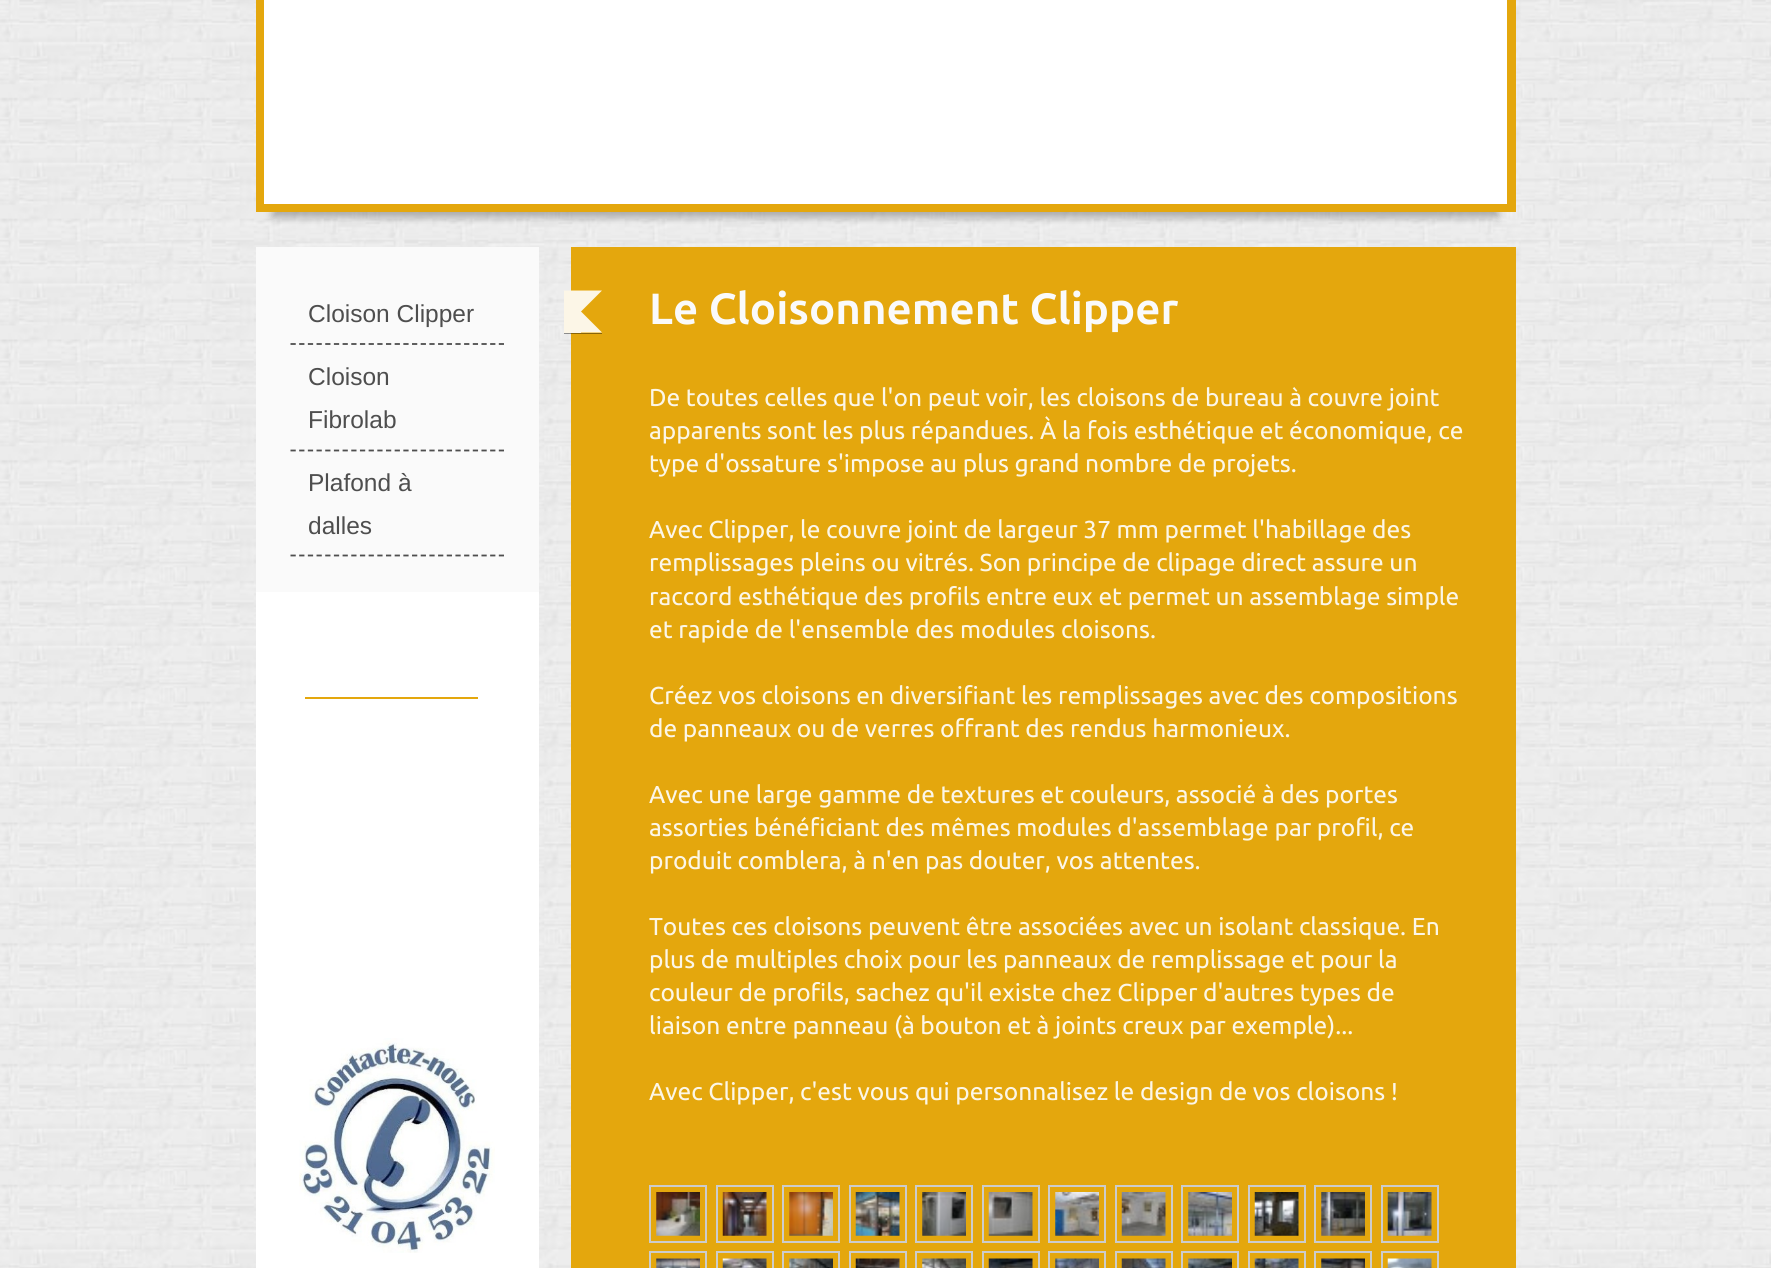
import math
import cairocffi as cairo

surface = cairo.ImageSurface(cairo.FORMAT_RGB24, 1771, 1268)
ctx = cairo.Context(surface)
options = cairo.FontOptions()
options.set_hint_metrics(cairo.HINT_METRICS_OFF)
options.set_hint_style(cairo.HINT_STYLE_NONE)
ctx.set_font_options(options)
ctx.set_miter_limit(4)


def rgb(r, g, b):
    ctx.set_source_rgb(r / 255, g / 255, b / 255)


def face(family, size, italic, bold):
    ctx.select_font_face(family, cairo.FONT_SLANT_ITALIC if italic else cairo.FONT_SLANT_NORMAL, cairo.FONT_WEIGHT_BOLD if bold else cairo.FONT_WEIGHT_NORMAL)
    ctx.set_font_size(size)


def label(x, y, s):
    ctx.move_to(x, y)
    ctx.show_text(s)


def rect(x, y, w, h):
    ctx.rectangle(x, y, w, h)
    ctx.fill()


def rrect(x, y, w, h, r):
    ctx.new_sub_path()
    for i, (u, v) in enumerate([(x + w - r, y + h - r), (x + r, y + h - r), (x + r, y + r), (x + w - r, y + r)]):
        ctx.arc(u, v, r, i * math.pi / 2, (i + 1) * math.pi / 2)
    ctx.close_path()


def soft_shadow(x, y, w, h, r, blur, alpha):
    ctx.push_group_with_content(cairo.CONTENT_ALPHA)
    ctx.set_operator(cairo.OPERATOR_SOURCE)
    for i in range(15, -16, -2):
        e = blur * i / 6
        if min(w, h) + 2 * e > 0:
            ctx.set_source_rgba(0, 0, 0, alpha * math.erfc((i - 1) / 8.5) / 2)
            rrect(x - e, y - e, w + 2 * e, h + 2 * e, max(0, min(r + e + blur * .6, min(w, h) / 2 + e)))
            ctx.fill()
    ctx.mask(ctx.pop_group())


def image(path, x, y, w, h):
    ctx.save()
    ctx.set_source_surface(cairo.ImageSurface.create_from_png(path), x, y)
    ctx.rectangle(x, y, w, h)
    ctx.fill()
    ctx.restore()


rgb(255, 255, 255)
ctx.paint()
image('image0.png', 0, 0, 1771, 1268)
rgb(0, 0, 0)
soft_shadow(273, -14, 1225, 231, 0, 4.5, 0.3)
ctx.rectangle(260.5, -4.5, 1251, 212)
rgb(228, 167, 13)
ctx.set_line_width(9)
ctx.stroke()
rgb(255, 255, 255)
rect(264, 0, 1243, 204)
rgb(250, 250, 250)
rect(256, 247, 283, 345)
rgb(228, 167, 13)
rect(571, 247, 945, 1021)
ctx.set_source_rgba(0, 0, 0, 0.4)
rect(564, 333, 38, 1)
rgb(252, 246, 231)
ctx.new_path()
ctx.move_to(563.5, 290.5)
ctx.line_to(602, 290.5)
ctx.line_to(581, 311.5)
ctx.close_path()
ctx.fill()
ctx.new_path()
ctx.move_to(602, 332.5)
ctx.line_to(563.5, 332.5)
ctx.line_to(581, 311.5)
ctx.close_path()
ctx.fill()
rect(564, 291, 17, 42)
face('Ubuntu', 43.75, 0, 1)
rgb(250, 250, 250)
label(649, 324, 'Le Cloisonnement Clipper')
face('Ubuntu', 24.5, 0, 0)
rgb(252, 246, 231)
label(649, 406, 'De toutes celles que l\'on peut voir, les cloisons de bureau à couvre joint')
label(649, 439, 'apparents sont les plus répandues. À la fois esthétique et économique, ce')
label(649, 472, 'type d\'ossature s\'impose au plus grand nombre de projets.')
label(649, 538, 'Avec Clipper, le couvre joint de largeur 37 mm permet l\'habillage des')
label(649, 571, 'remplissages pleins ou vitrés. Son principe de clipage direct assure un')
label(649, 605, 'raccord esthétique des profils entre eux et permet un assemblage simple')
label(649, 638, 'et rapide de l\'ensemble des modules cloisons.')
label(649, 704, 'Créez vos cloisons en diversifiant les remplissages avec des compositions')
label(649, 737, 'de panneaux ou de verres offrant des rendus harmonieux.')
label(649, 803, 'Avec une large gamme de textures et couleurs, associé à des portes')
label(649, 836, 'assorties bénéficiant des mêmes modules d\'assemblage par profil, ce')
label(649, 869, 'produit comblera, à n\'en pas douter, vos attentes.')
label(649, 935, 'Toutes ces cloisons peuvent être associées avec un isolant classique. En')
label(649, 968, 'plus de multiples choix pour les panneaux de remplissage et pour la')
label(649, 1001, 'couleur de profils, sachez qu\'il existe chez Clipper d\'autres types de')
label(649, 1034, 'liaison entre panneau (à bouton et à joints creux par exemple)...')
label(649, 1100, 'Avec Clipper, c\'est vous qui personnalisez le design de vos cloisons !')
ctx.rectangle(650, 1186, 56, 56)
rgb(204, 204, 204)
ctx.set_line_width(2)
ctx.stroke()
image('image1.png', 656, 1192, 44, 44)
ctx.rectangle(717, 1186, 56, 56)
ctx.stroke()
image('image2.png', 722, 1192, 45, 44)
ctx.rectangle(783, 1186, 56, 56)
ctx.stroke()
image('image3.png', 789, 1192, 44, 44)
ctx.rectangle(850, 1186, 56, 56)
ctx.stroke()
image('image4.png', 855, 1192, 45, 44)
ctx.rectangle(916, 1186, 56, 56)
ctx.stroke()
image('image5.png', 922, 1192, 44, 44)
ctx.rectangle(983, 1186, 56, 56)
ctx.stroke()
image('image6.png', 988, 1192, 45, 44)
ctx.rectangle(1049, 1186, 56, 56)
ctx.stroke()
image('image7.png', 1055, 1192, 44, 44)
ctx.rectangle(1116, 1186, 56, 56)
ctx.stroke()
image('image8.png', 1121, 1192, 45, 44)
ctx.rectangle(1182, 1186, 56, 56)
ctx.stroke()
image('image9.png', 1188, 1192, 44, 44)
ctx.rectangle(1249, 1186, 56, 56)
ctx.stroke()
image('image10.png', 1254, 1192, 45, 44)
ctx.rectangle(1315, 1186, 56, 56)
ctx.stroke()
image('image11.png', 1321, 1192, 44, 44)
ctx.rectangle(1382, 1186, 56, 56)
ctx.stroke()
image('image12.png', 1387, 1192, 45, 44)
ctx.rectangle(650, 1252, 56, 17)
ctx.stroke()
image('image13.png', 656, 1258, 44, 10)
ctx.rectangle(717, 1252, 56, 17)
ctx.stroke()
image('image14.png', 722, 1258, 45, 10)
ctx.rectangle(783, 1252, 56, 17)
ctx.stroke()
image('image15.png', 789, 1258, 44, 10)
ctx.rectangle(850, 1252, 56, 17)
ctx.stroke()
image('image16.png', 855, 1258, 45, 10)
ctx.rectangle(916, 1252, 56, 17)
ctx.stroke()
image('image17.png', 922, 1258, 44, 10)
ctx.rectangle(983, 1252, 56, 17)
ctx.stroke()
image('image18.png', 988, 1258, 45, 10)
ctx.rectangle(1049, 1252, 56, 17)
ctx.stroke()
image('image19.png', 1055, 1258, 44, 10)
ctx.rectangle(1116, 1252, 56, 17)
ctx.stroke()
image('image20.png', 1121, 1258, 45, 10)
ctx.rectangle(1182, 1252, 56, 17)
ctx.stroke()
image('image21.png', 1188, 1258, 44, 10)
ctx.rectangle(1249, 1252, 56, 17)
ctx.stroke()
image('image22.png', 1254, 1258, 45, 10)
ctx.rectangle(1315, 1252, 56, 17)
ctx.stroke()
image('image23.png', 1321, 1258, 44, 10)
ctx.rectangle(1382, 1252, 56, 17)
ctx.stroke()
image('image24.png', 1387, 1258, 45, 10)
ctx.new_path()
ctx.move_to(290.5, 344)
ctx.line_to(504, 344)
rgb(78, 78, 78)
ctx.set_line_width(1.8)
ctx.set_dash([5.25, 3.43])
ctx.stroke()
face('Liberation Sans', 24.5, 0, 0)
label(308, 322, 'Cloison Clipper')
ctx.new_path()
ctx.move_to(290.5, 450.5)
ctx.line_to(504, 450.5)
ctx.stroke()
label(308, 385, 'Cloison')
label(308, 428, 'Fibrolab')
ctx.new_path()
ctx.move_to(290.5, 555.5)
ctx.line_to(504, 555.5)
ctx.stroke()
label(308, 491, 'Plafond à')
label(308, 534, 'dalles')
rgb(255, 255, 255)
rect(256, 592, 283, 676)
rgb(228, 167, 13)
rect(305, 697, 173, 2)
image('image25.png', 299, 1038, 196, 215)
surface.write_to_png('render.png')
